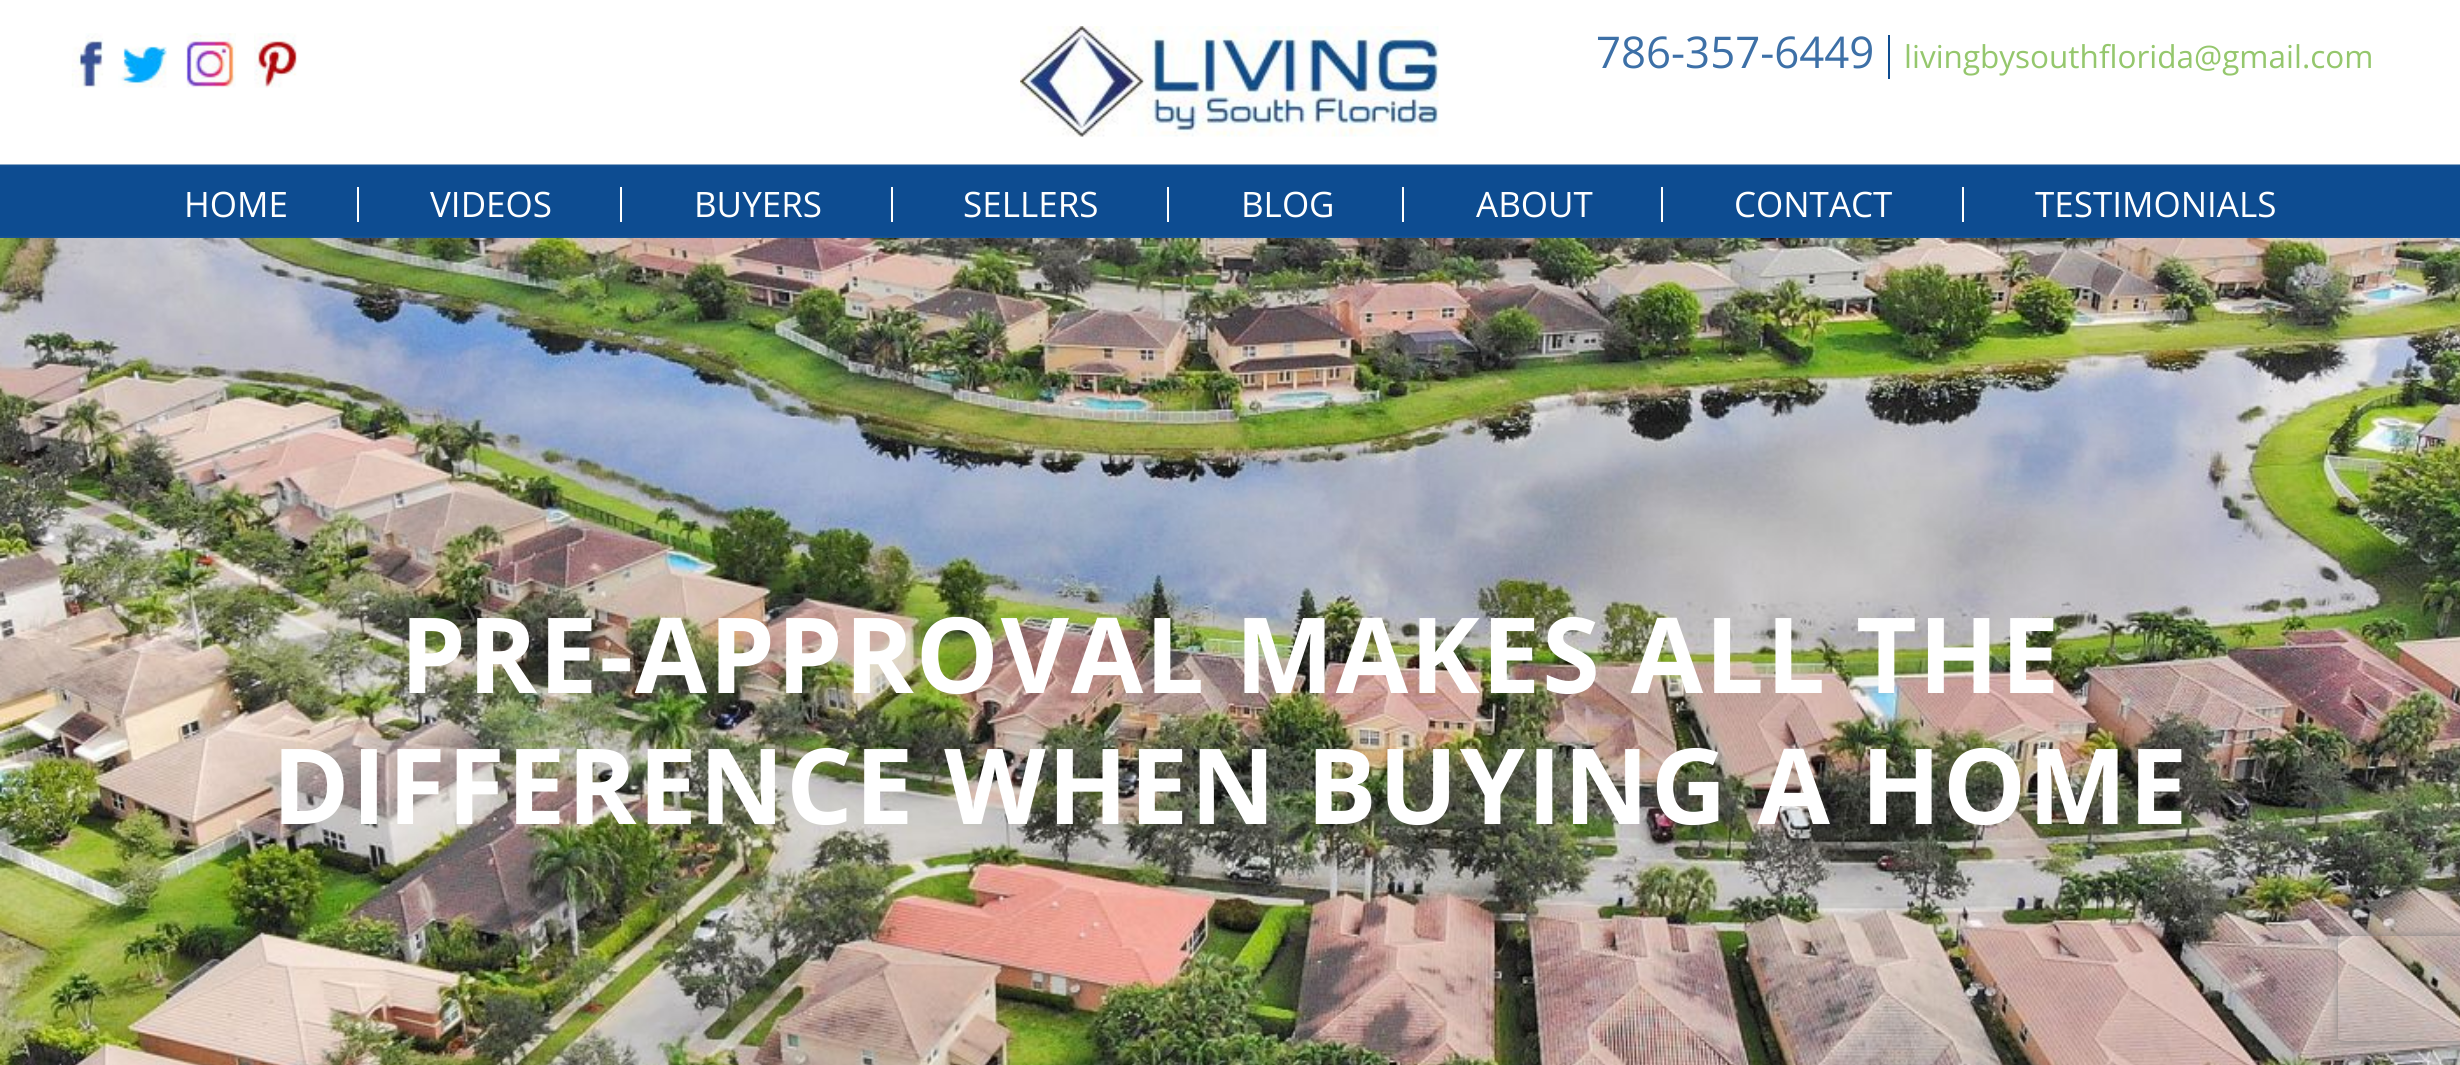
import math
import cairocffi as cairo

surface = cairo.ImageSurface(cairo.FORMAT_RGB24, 2460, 1065)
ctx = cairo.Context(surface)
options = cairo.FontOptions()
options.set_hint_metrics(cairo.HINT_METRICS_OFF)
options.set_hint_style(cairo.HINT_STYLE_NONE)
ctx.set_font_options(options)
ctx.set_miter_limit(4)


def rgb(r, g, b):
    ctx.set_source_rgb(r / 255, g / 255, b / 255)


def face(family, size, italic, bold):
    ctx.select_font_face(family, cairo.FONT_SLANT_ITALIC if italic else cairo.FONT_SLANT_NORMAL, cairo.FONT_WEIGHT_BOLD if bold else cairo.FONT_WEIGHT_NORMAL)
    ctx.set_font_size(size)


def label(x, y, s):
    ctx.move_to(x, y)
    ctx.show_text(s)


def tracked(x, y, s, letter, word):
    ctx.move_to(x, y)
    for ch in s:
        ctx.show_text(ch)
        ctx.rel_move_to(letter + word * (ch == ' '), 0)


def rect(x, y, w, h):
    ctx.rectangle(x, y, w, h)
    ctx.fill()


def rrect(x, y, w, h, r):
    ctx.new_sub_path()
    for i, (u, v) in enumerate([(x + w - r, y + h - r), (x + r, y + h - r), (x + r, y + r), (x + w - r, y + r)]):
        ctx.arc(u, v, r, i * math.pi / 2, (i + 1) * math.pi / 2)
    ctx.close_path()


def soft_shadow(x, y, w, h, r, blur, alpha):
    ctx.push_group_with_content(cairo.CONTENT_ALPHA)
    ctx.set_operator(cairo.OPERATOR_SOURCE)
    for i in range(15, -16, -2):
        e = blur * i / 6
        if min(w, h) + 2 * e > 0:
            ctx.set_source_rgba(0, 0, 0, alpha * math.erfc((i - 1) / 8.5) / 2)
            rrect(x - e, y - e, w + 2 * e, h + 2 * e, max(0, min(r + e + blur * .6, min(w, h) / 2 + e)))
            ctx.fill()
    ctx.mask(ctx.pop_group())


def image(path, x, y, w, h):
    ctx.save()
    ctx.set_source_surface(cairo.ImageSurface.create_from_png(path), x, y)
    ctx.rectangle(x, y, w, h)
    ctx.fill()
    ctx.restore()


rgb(255, 255, 255)
ctx.paint()
image('image0.png', 0, 164, 2460, 74)
image('image1.png', 1020, 26, 419, 111)
image('image2.png', 71, 33, 33, 55)
image('image3.png', 118, 46, 49, 42)
image('image4.png', 186, 33, 50, 55)
image('image5.png', 254, 33, 43, 55)
rgb(13, 76, 145)
rect(1888, 35, 2, 44)
face('Open Sans', 43.75, 0, 0)
rgb(61, 112, 167)
label(1596, 68, '786-357-6449')
face('Open Sans', 31.5, 0, 0)
rgb(149, 199, 109)
label(1904, 68, 'livingbysouthflorida@gmail.com')
face('Open Sans', 35, 0, 0)
rgb(255, 255, 255)
label(184, 217, 'HOME')
rect(357, 187, 2, 35)
label(430, 217, 'VIDEOS')
rect(620, 187, 2, 35)
label(694, 217, 'BUYERS')
rect(891, 187, 2, 35)
label(963, 217, 'SELLERS')
rect(1167, 187, 2, 35)
label(1241, 217, 'BLOG')
rect(1402, 187, 2, 35)
label(1476, 217, 'ABOUT')
rect(1661, 187, 2, 35)
label(1734, 217, 'CONTACT')
rect(1962, 187, 2, 35)
label(2035, 217, 'TESTIMONIALS')
image('image6.png', 0, 238, 2460, 827)
face('Open Sans', 105, 0, 1)
tracked(400, 693, 'PRE-APPROVAL MAKES ALL THE', 1.75, 0)
tracked(272, 824, 'DIFFERENCE WHEN BUYING A HOME', 1.75, 0)
ctx.save()
ctx.set_fill_rule(cairo.FILL_RULE_EVEN_ODD)
ctx.new_path()
ctx.move_to(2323, 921)
ctx.line_to(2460, 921)
ctx.line_to(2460, 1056)
ctx.line_to(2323, 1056)
ctx.close_path()
ctx.move_to(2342, 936)
ctx.line_to(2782, 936)
ctx.curve_to(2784, 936, 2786, 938, 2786, 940)
ctx.line_to(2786, 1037)
ctx.curve_to(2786, 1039, 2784, 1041, 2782, 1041)
ctx.line_to(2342, 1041)
ctx.curve_to(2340, 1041, 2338, 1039, 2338, 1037)
ctx.line_to(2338, 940)
ctx.curve_to(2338, 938, 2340, 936, 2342, 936)
ctx.close_path()
ctx.clip()
rgb(128, 128, 128)
soft_shadow(2338, 936, 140, 105, 4, 4.5, 1)
ctx.restore()
surface.write_to_png('render.png')
